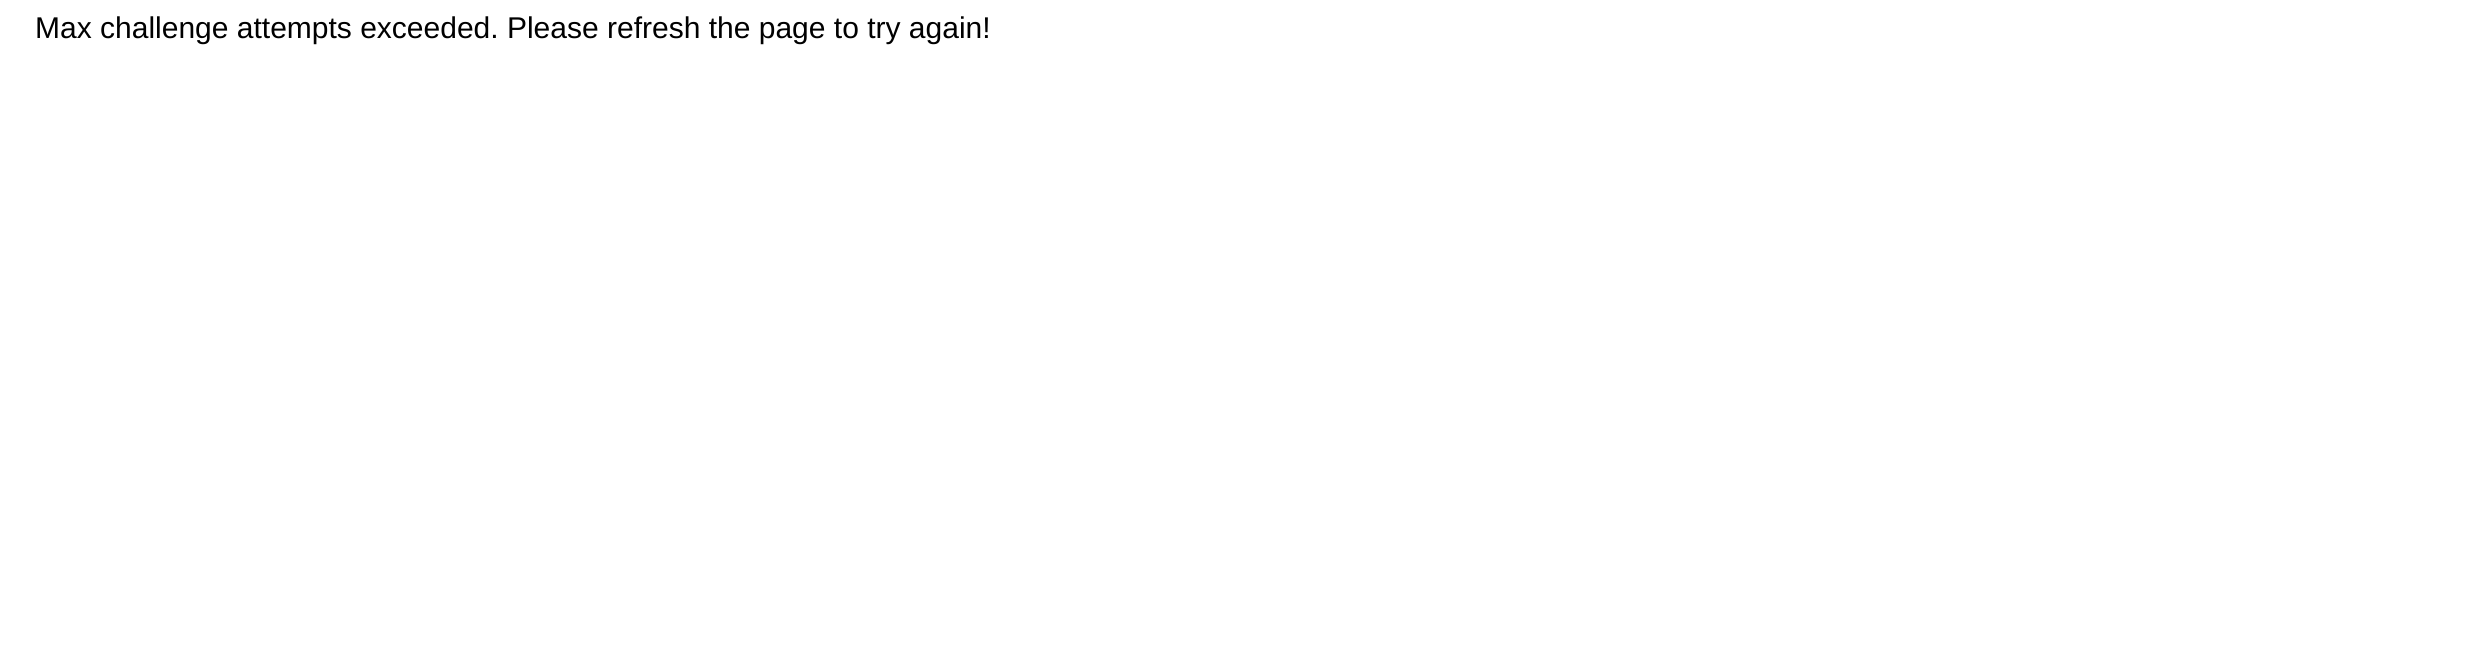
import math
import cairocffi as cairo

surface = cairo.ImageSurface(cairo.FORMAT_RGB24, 2481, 669)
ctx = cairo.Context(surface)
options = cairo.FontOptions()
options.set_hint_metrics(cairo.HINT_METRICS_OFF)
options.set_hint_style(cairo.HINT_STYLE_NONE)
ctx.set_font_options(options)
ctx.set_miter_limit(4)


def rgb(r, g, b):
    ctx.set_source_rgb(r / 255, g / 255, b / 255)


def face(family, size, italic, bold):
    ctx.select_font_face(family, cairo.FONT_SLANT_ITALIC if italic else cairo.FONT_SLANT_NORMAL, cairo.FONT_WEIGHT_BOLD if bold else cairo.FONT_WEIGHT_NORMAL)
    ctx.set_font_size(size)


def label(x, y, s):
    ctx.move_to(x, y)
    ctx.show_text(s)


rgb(255, 255, 255)
ctx.paint()
face('Liberation Sans', 30, 0, 0)
rgb(0, 0, 0)
label(35, 38, 'Max challenge attempts exceeded. Please refresh the page to try again!')
surface.write_to_png('render.png')
